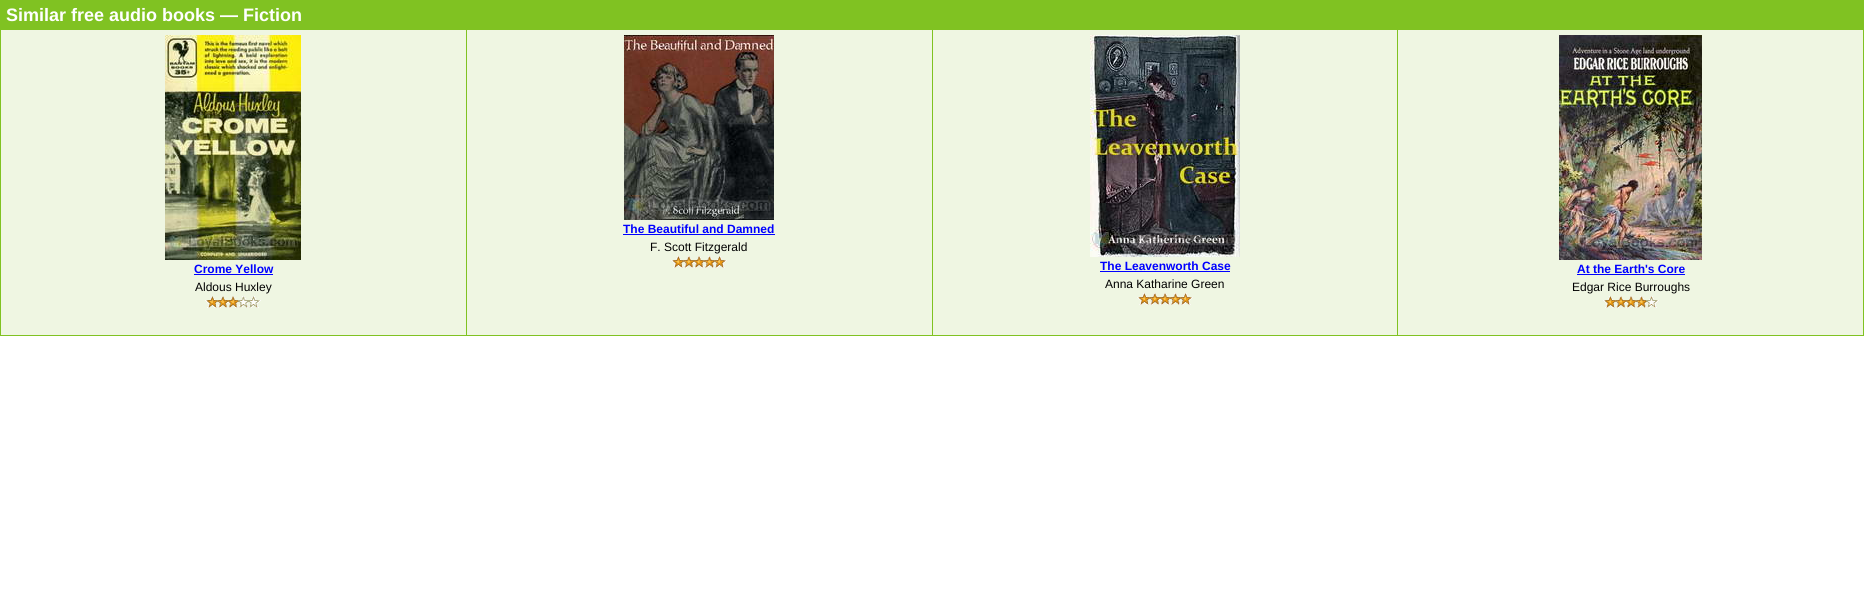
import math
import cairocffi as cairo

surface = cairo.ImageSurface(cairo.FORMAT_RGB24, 1864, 596)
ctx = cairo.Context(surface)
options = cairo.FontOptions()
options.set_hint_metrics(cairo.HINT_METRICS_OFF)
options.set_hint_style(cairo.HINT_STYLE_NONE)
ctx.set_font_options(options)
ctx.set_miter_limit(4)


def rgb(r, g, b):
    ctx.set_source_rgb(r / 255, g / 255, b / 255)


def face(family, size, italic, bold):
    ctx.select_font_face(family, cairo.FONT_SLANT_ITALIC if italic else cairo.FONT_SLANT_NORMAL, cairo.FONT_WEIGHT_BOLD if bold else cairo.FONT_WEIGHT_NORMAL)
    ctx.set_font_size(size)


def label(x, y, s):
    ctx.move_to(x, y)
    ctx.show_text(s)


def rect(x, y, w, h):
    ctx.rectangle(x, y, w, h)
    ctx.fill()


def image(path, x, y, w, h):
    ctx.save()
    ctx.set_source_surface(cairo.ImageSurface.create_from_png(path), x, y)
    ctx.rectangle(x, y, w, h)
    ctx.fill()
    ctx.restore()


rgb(255, 255, 255)
ctx.paint()
rgb(239, 246, 226)
rect(1, 30, 1862, 305)
rgb(128, 194, 34)
rect(0, 0, 1864, 1)
rect(1863, 0, 1, 336)
rect(0, 335, 1864, 1)
rect(0, 0, 1, 336)
rect(1, 1, 1862, 29)
face('Liberation Sans', 18, 0, 1)
rgb(255, 255, 255)
label(6, 21, 'Similar free audio books — Fiction')
rgb(128, 194, 34)
rect(466, 29, 1, 307)
image('image0.png', 624, 35, 150, 185)
face('Liberation Sans', 12, 0, 1)
rgb(0, 0, 255)
label(623, 233, 'The Beautiful and Damned')
rect(623, 234, 152, 1)
face('Liberation Sans', 12, 0, 0)
rgb(0, 0, 0)
label(650, 251, 'F. Scott Fitzgerald')
image('image1.png', 671, 256, 56, 12)
image('image2.png', 165, 35, 136, 225)
face('Liberation Sans', 12, 0, 1)
rgb(0, 0, 255)
label(194, 273, 'Crome Yellow')
rect(194, 274, 79, 1)
face('Liberation Sans', 12, 0, 0)
rgb(0, 0, 0)
label(195, 291, 'Aldous Huxley')
image('image3.png', 205, 296, 56, 12)
rgb(128, 194, 34)
rect(932, 29, 1, 307)
image('image4.png', 1090, 35, 150, 222)
face('Liberation Sans', 12, 0, 1)
rgb(0, 0, 255)
label(1100, 270, 'The Leavenworth Case')
rect(1100, 271, 130, 1)
face('Liberation Sans', 12, 0, 0)
rgb(0, 0, 0)
label(1105, 288, 'Anna Katharine Green')
image('image1.png', 1137, 293, 56, 12)
rgb(128, 194, 34)
rect(1397, 29, 1, 307)
image('image5.png', 1559, 35, 143, 225)
face('Liberation Sans', 12, 0, 1)
rgb(0, 0, 255)
label(1577, 273, 'At the Earth\'s Core')
rect(1577, 274, 108, 1)
face('Liberation Sans', 12, 0, 0)
rgb(0, 0, 0)
label(1572, 291, 'Edgar Rice Burroughs')
image('image6.png', 1603, 296, 56, 12)
surface.write_to_png('render.png')
